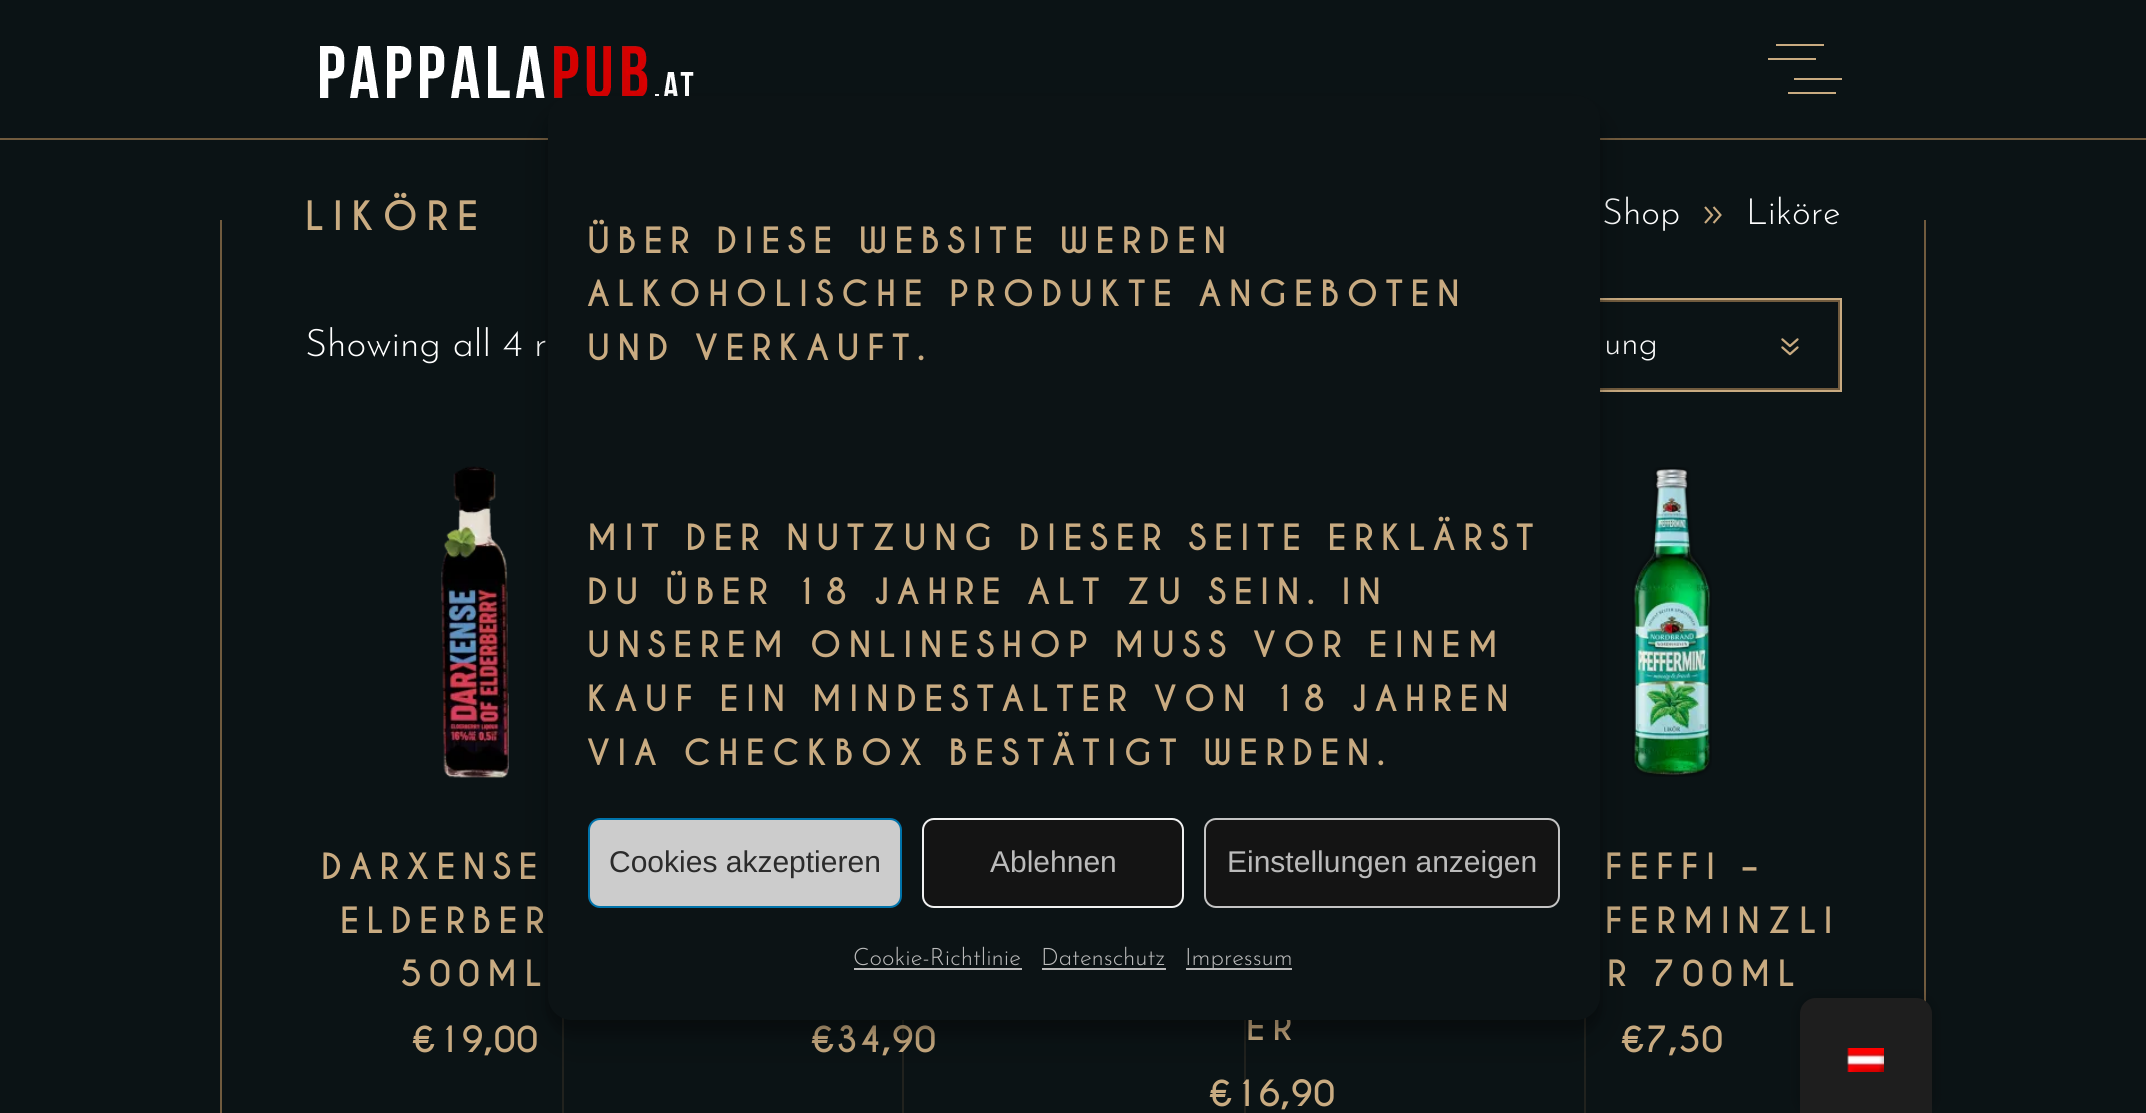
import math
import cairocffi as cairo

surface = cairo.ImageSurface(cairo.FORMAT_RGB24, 2146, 1113)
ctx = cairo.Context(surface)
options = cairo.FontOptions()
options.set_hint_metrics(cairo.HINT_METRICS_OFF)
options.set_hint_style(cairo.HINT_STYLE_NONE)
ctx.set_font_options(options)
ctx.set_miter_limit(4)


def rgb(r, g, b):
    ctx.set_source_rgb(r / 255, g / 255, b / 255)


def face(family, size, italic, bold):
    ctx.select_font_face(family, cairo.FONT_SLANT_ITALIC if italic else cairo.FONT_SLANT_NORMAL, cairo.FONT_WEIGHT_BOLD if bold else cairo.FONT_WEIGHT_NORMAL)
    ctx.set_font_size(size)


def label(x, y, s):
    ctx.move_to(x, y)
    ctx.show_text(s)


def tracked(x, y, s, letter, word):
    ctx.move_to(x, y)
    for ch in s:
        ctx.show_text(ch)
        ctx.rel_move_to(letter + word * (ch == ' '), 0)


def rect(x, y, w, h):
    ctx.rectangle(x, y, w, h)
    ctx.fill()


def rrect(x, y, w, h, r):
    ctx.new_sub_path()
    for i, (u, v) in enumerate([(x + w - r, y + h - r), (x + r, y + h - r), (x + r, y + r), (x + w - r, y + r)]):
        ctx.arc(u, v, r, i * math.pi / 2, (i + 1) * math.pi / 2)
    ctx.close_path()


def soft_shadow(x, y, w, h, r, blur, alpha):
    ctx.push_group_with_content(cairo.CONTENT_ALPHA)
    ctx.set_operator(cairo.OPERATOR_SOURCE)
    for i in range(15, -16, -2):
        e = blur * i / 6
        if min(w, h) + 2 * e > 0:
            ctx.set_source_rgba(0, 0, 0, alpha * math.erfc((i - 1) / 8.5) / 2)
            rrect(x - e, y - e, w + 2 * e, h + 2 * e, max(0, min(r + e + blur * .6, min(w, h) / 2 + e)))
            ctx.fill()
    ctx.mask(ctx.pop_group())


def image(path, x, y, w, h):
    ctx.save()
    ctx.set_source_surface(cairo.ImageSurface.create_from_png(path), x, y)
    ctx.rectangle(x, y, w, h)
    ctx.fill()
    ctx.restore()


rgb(11, 19, 21)
ctx.paint()
rgb(113, 91, 62)
rect(0, 138, 2146, 2)
image('image0.png', 320, 46, 374, 52)
rgb(201, 171, 129)
rect(1776, 44, 48, 2)
rect(1768, 58, 48, 2)
rect(1794, 78, 48, 2)
rect(1788, 92, 48, 2)
rgb(113, 91, 62)
rect(220, 220, 2, 893)
face('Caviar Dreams', 38, 0, 1)
rgb(201, 171, 129)
tracked(305, 230, 'LIKÖRE', 8.75, 0)
face('Josefin Sans Light', 36, 0, 0)
rgb(255, 255, 255)
label(1602, 224, 'Shop')
ctx.new_path()
ctx.move_to(1705, 207)
ctx.line_to(1712, 215)
ctx.line_to(1705, 223)
ctx.move_to(1713.5, 207)
ctx.line_to(1720.5, 215)
ctx.line_to(1713.5, 223)
rgb(201, 171, 129)
ctx.set_line_width(2.1)
ctx.stroke()
rgb(255, 255, 255)
label(1746, 224, 'Liköre')
face('Josefin Sans Light', 38, 0, 0)
label(305, 356, 'Showing all 4 r')
ctx.rectangle(1339, 299, 502, 92)
rgb(201, 171, 129)
ctx.set_line_width(2)
ctx.stroke()
ctx.rectangle(1341, 301, 498, 88)
rgb(113, 91, 62)
ctx.stroke()
face('Josefin Sans Light', 34, 0, 0)
rgb(255, 255, 255)
label(1604, 354, 'ung')
image('image1.png', 1781, 338, 18, 18)
image('image2.png', 441, 466, 68, 312)
face('Caviar Dreams', 34, 0, 1)
rgb(201, 171, 129)
tracked(321, 879, 'DARXENSE', 7.5, 0)
tracked(340, 933, 'ELDERBER', 7.5, 0)
tracked(400, 986, '500ML', 7.5, 0)
tracked(411, 1052, '€19,00', 1, 0)
rgb(33, 34, 30)
rect(902, 1020, 2, 93)
rgb(201, 171, 129)
tracked(810, 1052, '€34,90', 1, 0)
tracked(1246, 1040, 'ER', 7.5, 0)
rgb(33, 34, 30)
rect(1244, 1020, 2, 93)
rgb(201, 171, 129)
tracked(1208, 1106, '€16,90', 1, 0)
image('image3.png', 1632, 467, 80, 310)
tracked(1605, 879, 'FEFFI –', 7.5, 0)
tracked(1605, 933, 'FERMINZLI', 7.5, 0)
tracked(1607, 986, 'R 700ML', 7.5, 0)
tracked(1620, 1052, '€7,50', 1, 0)
rgb(33, 34, 30)
rect(562, 1017, 2, 96)
rect(1584, 1017, 2, 96)
rgb(113, 91, 62)
rect(1924, 220, 2, 782)
rgb(0, 0, 0)
soft_shadow(548, 108, 1052, 924, 24, 6, 0.23)
soft_shadow(548, 116, 1052, 924, 24, 20, 0.19)
rgb(12, 19, 21)
rrect(548, 96, 1052, 924, 24)
ctx.fill()
rgb(201, 171, 129)
tracked(587, 253, 'ÜBER DIESE WEBSITE WERDEN', 7.5, 0)
tracked(587, 306, 'ALKOHOLISCHE PRODUKTE ANGEBOTEN', 7.5, 0)
tracked(587, 360, 'UND VERKAUFT.', 7.5, 0)
tracked(587, 550, 'MIT DER NUTZUNG DIESER SEITE ERKLÄRST', 7.5, 0)
tracked(587, 604, 'DU ÜBER 18 JAHRE ALT ZU SEIN. IN', 7.5, 0)
tracked(587, 657, 'UNSEREM ONLINESHOP MUSS VOR EINEM', 7.5, 0)
tracked(587, 711, 'KAUF EIN MINDESTALTER VON 18 JAHREN', 7.5, 0)
tracked(587, 765, 'VIA CHECKBOX BESTÄTIGT WERDEN.', 7.5, 0)
rgb(204, 204, 204)
rrect(589, 819, 312, 88, 11)
ctx.fill_preserve()
rgb(0, 115, 170)
ctx.stroke()
face('Liberation Sans', 30, 0, 0)
rgb(43, 43, 43)
label(609, 872, 'Cookies akzeptieren')
rgb(20, 20, 20)
rrect(923, 819, 260, 88, 11)
ctx.fill_preserve()
rgb(241, 241, 241)
ctx.stroke()
rgb(187, 187, 187)
label(990, 872, 'Ablehnen')
rgb(20, 20, 20)
rrect(1205, 819, 354, 88, 11)
ctx.fill_preserve()
rgb(196, 196, 196)
ctx.stroke()
rgb(187, 187, 187)
label(1227, 872, 'Einstellungen anzeigen')
face('Josefin Sans Light', 24, 0, 0)
label(853, 965, 'Cookie-Richtlinie')
rect(854, 968, 168, 2)
label(1041, 965, 'Datenschutz')
rect(1042, 968, 124, 2)
rect(1186, 968, 106, 2)
label(1185, 965, 'Impressum')
rgb(0, 0, 0)
soft_shadow(1800, 998, 132, 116, 16, 8, 0.25)
rgb(30, 30, 30)
ctx.new_path()
ctx.move_to(1816, 998)
ctx.line_to(1916, 998)
ctx.curve_to(1925, 998, 1932, 1005, 1932, 1014)
ctx.line_to(1932, 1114)
ctx.line_to(1800, 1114)
ctx.line_to(1800, 1014)
ctx.curve_to(1800, 1005, 1807, 998, 1816, 998)
ctx.close_path()
ctx.fill()
image('image4.png', 1847, 1048, 37, 24)
surface.write_to_png('render.png')
